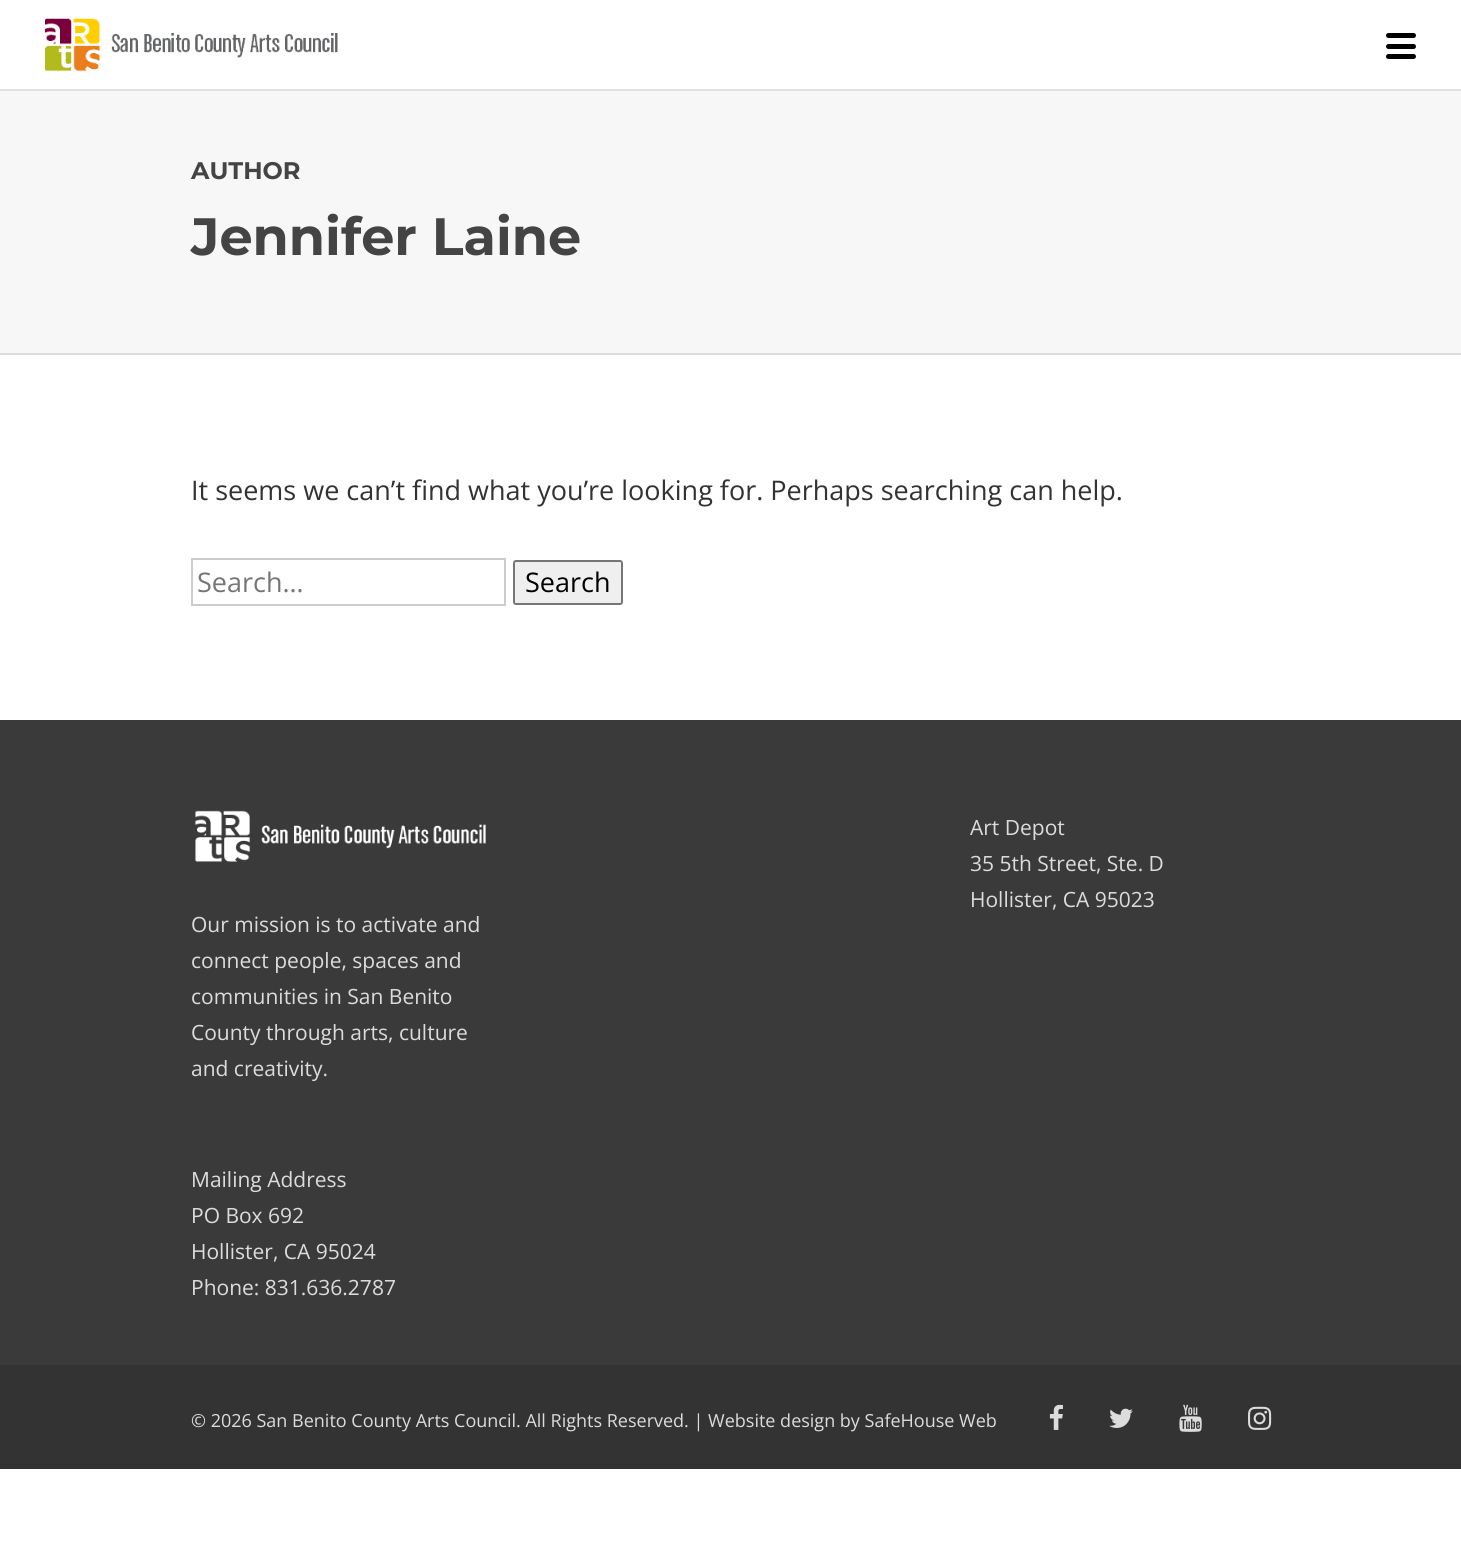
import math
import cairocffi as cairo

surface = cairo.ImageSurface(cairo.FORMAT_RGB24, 1461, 1545)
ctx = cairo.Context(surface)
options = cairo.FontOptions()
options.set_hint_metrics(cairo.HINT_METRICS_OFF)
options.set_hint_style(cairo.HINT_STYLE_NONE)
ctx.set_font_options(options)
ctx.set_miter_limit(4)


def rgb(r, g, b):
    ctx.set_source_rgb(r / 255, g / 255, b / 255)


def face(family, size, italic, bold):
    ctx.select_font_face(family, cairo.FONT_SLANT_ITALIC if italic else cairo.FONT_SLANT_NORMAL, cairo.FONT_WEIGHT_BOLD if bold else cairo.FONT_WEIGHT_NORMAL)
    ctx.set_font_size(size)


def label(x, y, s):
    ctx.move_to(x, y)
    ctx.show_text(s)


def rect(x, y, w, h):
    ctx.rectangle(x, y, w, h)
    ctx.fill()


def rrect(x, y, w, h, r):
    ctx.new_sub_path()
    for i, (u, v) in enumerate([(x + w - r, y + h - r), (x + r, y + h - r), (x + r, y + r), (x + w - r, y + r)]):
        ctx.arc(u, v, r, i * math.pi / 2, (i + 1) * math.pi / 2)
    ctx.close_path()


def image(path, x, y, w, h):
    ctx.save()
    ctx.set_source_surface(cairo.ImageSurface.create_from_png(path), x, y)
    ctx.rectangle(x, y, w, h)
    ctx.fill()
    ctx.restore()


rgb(255, 255, 255)
ctx.paint()
rgb(225, 225, 225)
rect(0, 89, 1461, 2)
image('image0.png', 45, 18, 293, 54)
rgb(0, 0, 0)
rrect(1386, 33, 30, 5, 2.5)
ctx.fill()
rrect(1386, 44, 30, 5, 2.5)
ctx.fill()
rrect(1386, 54, 30, 5, 2.5)
ctx.fill()
rgb(247, 247, 247)
rect(0, 91, 1461, 262)
rgb(221, 221, 221)
rect(0, 353, 1461, 2)
face('Montserrat', 24, 0, 1)
rgb(68, 68, 68)
label(191, 179, 'AUTHOR')
face('Montserrat', 52.5, 0, 1)
label(191, 255, 'Jennifer Laine')
face('Open Sans', 27, 0, 0)
rgb(51, 51, 51)
label(191, 500, 'It seems we can’t find what you’re looking for. Perhaps searching can help.')
ctx.rectangle(192, 559, 313, 46)
rgb(204, 204, 204)
ctx.stroke()
rgb(117, 117, 117)
label(197, 592, 'Search…')
rgb(239, 239, 239)
rrect(514, 561, 108, 43, 2)
ctx.fill_preserve()
rgb(118, 118, 118)
ctx.stroke()
rgb(0, 0, 0)
label(525, 592, 'Search')
rgb(58, 58, 58)
rect(0, 720, 1461, 645)
face('Open Sans', 21, 0, 0)
rgb(220, 220, 220)
label(970, 835, 'Art Depot')
label(970, 871, '35 5th Street, Ste. D')
label(970, 907, 'Hollister, CA 95023')
image('image1.png', 195, 810, 291, 52)
label(191, 932, 'Our mission is to activate and')
label(191, 968, 'connect people, spaces and')
label(191, 1004, 'communities in San Benito')
label(191, 1040, 'County through arts, culture')
label(191, 1076, 'and creativity.')
label(191, 1187, 'Mailing Address')
label(191, 1223, 'PO Box 692')
label(191, 1259, 'Hollister, CA 95024')
label(191, 1295, 'Phone: 831.636.2787')
rgb(51, 51, 51)
rect(0, 1365, 1461, 104)
face('Open Sans', 18, 0, 0)
rgb(220, 220, 220)
label(191, 1427, '© 2026 San Benito County Arts Council. All Rights Reserved. | Website design by SafeHouse Web')
image('image2.png', 1049, 1404, 14, 26)
image('image3.png', 1109, 1408, 24, 20)
image('image4.png', 1179, 1404, 23, 28)
image('image5.png', 1248, 1406, 24, 24)
surface.write_to_png('render.png')
